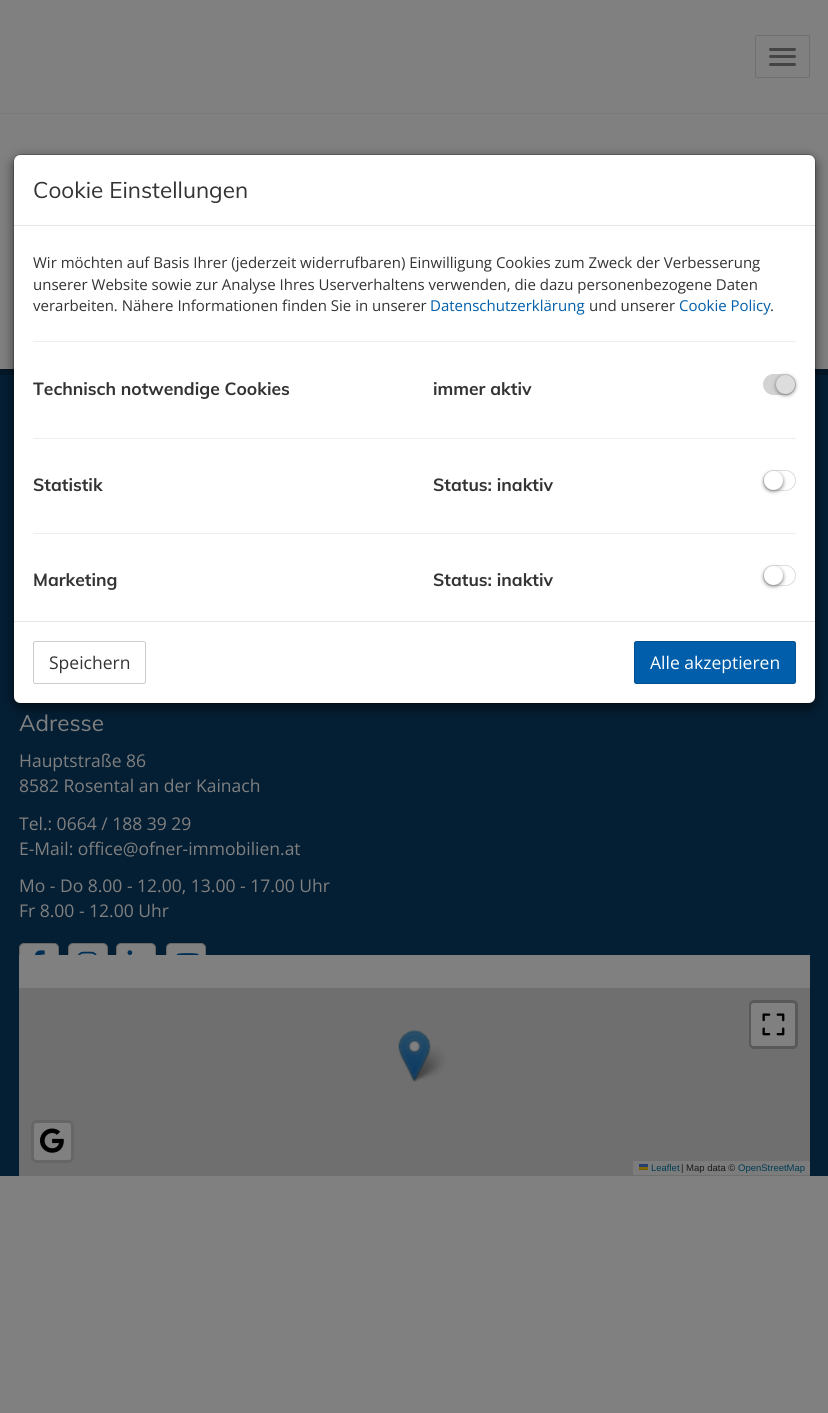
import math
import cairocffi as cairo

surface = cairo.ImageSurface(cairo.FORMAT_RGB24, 828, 1413)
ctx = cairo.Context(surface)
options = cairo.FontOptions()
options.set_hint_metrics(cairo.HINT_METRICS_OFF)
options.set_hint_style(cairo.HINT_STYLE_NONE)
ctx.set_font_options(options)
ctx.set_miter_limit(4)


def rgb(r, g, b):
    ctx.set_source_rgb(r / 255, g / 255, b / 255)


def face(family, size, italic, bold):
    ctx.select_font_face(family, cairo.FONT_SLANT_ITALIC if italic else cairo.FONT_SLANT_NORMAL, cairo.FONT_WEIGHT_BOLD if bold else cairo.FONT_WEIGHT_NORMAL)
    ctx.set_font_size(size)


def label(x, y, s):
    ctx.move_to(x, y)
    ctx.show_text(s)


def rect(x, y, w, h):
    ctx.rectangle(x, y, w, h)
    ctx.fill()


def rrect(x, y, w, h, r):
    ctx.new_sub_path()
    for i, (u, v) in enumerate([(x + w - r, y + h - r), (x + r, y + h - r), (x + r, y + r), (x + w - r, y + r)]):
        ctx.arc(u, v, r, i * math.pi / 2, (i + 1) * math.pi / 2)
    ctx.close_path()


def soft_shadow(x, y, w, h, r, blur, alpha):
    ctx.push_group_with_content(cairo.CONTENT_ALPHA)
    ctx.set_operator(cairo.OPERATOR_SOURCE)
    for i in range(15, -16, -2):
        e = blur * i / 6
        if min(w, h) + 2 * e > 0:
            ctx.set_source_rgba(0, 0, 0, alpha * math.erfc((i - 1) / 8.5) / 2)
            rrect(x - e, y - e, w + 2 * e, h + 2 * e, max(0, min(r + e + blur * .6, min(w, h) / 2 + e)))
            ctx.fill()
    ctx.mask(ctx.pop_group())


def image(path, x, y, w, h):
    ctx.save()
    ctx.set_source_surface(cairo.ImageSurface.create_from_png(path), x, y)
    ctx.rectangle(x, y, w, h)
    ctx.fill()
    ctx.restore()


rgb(128, 128, 128)
ctx.paint()
rgb(121, 121, 121)
rect(0, 113, 828, 1)
rrect(755.5, 35.5, 54, 42, 2)
rgb(111, 111, 111)
ctx.set_line_width(1)
ctx.stroke()
rgb(68, 68, 68)
rrect(769, 48, 27, 3, 1.5)
ctx.fill()
rrect(769, 55, 27, 3, 1.5)
ctx.fill()
rrect(769, 63, 27, 3, 1.5)
ctx.fill()
rgb(4, 30, 51)
rect(0, 375, 828, 801)
rgb(3, 23, 39)
rect(0, 369, 828, 6)
rgb(0, 0, 0)
soft_shadow(13, 158, 803, 550, 8, 5.5, 0.5)
rgb(255, 255, 255)
rrect(14, 155, 801, 548, 6)
ctx.fill()
rrect(13.5, 154.5, 802, 549, 7.5)
ctx.set_source_rgba(0, 0, 0, 0.2)
ctx.stroke()
rgb(229, 229, 229)
rect(14, 225, 801, 1)
face('Muli', 22.5, 0, 0)
rgb(51, 51, 51)
label(33, 198, 'Cookie Einstellungen')
face('Open Sans', 15, 0, 0)
label(33, 268, 'Wir möchten auf Basis Ihrer (jederzeit widerrufbaren) Einwilligung Cookies zum Zweck der Verbesserung')
label(33, 290, 'unserer Website sowie zur Analyse Ihres Userverhaltens verwenden, die dazu personenbezogene Daten')
label(33, 311, 'verarbeiten. Nähere Informationen finden Sie in unserer')
rgb(0, 94, 170)
label(430, 311, 'Datenschutzerklärung')
rgb(51, 51, 51)
label(589, 311, 'und unserer')
rgb(0, 94, 170)
label(679, 311, 'Cookie Policy')
rgb(51, 51, 51)
label(770, 311, '.')
rgb(238, 238, 238)
rect(33, 341, 763, 1)
face('Muli', 17.5, 0, 1)
rgb(51, 51, 51)
label(33, 395, 'Technisch notwendige Cookies')
label(433, 395, 'immer aktiv')
rgb(211, 211, 211)
rrect(763.5, 374.5, 32, 20, 10)
ctx.fill_preserve()
ctx.stroke()
rgb(119, 119, 119)
soft_shadow(776, 376, 19, 19, 9.5, 2, 1)
rgb(221, 221, 221)
ctx.arc(785.5, 384.5, 9.5, 0, 2 * math.pi)
ctx.fill()
rgb(238, 238, 238)
rect(33, 438, 763, 1)
rgb(51, 51, 51)
label(33, 491, 'Statistik')
label(433, 491, 'Status: inaktiv')
rrect(763.5, 470.5, 32, 20, 10)
rgb(221, 221, 221)
ctx.stroke()
rgb(119, 119, 119)
soft_shadow(764, 473, 19, 18, 9, 2, 1)
rgb(255, 255, 255)
ctx.arc(773.5, 480.5, 9.5, 0, 2 * math.pi)
ctx.fill()
rgb(238, 238, 238)
rect(33, 533, 763, 1)
rgb(51, 51, 51)
label(33, 586, 'Marketing')
label(433, 586, 'Status: inaktiv')
rrect(763.5, 565.5, 32, 20, 10)
rgb(221, 221, 221)
ctx.stroke()
rgb(119, 119, 119)
soft_shadow(764, 568, 19, 18, 9, 2, 1)
rgb(255, 255, 255)
ctx.arc(773.5, 575.5, 9.5, 0, 2 * math.pi)
ctx.fill()
rgb(229, 229, 229)
rect(14, 621, 801, 1)
rrect(33.5, 641.5, 112, 42, 2)
rgb(204, 204, 204)
ctx.stroke()
face('Open Sans', 17.5, 0, 0)
rgb(51, 51, 51)
label(49, 669, 'Speichern')
rgb(0, 94, 170)
rrect(634.5, 641.5, 161, 42, 2)
ctx.fill_preserve()
rgb(0, 80, 145)
ctx.stroke()
rgb(255, 255, 255)
label(650, 669, 'Alle akzeptieren')
face('Muli', 22.5, 0, 0)
rgb(128, 128, 128)
label(19, 731, 'Adresse')
face('Open Sans', 17.5, 0, 0)
label(19, 767, 'Hauptstraße 86')
label(19, 792, '8582 Rosental an der Kainach')
label(19, 830, 'Tel.: 0664 / 188 39 29')
label(19, 855, 'E-Mail: office@ofner-immobilien.at')
label(19, 892, 'Mo - Do 8.00 - 12.00, 13.00 - 17.00 Uhr')
label(19, 917, 'Fr 8.00 - 12.00 Uhr')
rrect(19.5, 943.5, 39, 39, 4.5)
ctx.fill_preserve()
rgb(102, 102, 102)
ctx.stroke()
image('image0.png', 35, 950, 10, 5)
rgb(128, 128, 128)
rrect(68.5, 943.5, 39, 39, 4.5)
ctx.fill_preserve()
rgb(102, 102, 102)
ctx.stroke()
image('image1.png', 78, 951, 19, 4)
rgb(128, 128, 128)
rrect(116.5, 943.5, 39, 39, 4.5)
ctx.fill_preserve()
rgb(102, 102, 102)
ctx.stroke()
image('image2.png', 127, 950, 6, 5)
rgb(128, 128, 128)
rrect(166.5, 943.5, 39, 39, 4.5)
ctx.fill_preserve()
rgb(102, 102, 102)
ctx.stroke()
image('image3.png', 176, 953, 23, 2)
rgb(128, 128, 128)
rect(19, 955, 791, 33)
rgb(111, 111, 111)
rect(19, 988, 791, 188)
image('image5.png', 408, 1046, 38, 36)
image('image4.png', 398, 1029, 33, 53)
rrect(750.5, 1001.5, 46, 46, 3.5)
rgb(89, 89, 89)
ctx.set_line_width(3)
ctx.stroke()
rgb(128, 128, 128)
rrect(751, 1003, 44, 43, 2.5)
ctx.fill()
image('image6.png', 762, 1013, 23, 23)
rrect(31, 1120, 43, 43, 6)
ctx.fill()
rrect(32.5, 1121.5, 40, 40, 4.5)
ctx.set_source_rgba(0, 0, 0, 0.2)
ctx.stroke()
rgb(128, 128, 128)
rrect(34, 1123, 37, 37, 2.5)
ctx.fill()
image('image7.png', 40, 1128, 24, 25)
rgb(124, 124, 124)
rect(633, 1161, 177, 14)
face('Liberation Sans', 9.5, 0, 0)
rgb(0, 60, 84)
label(651, 1171, 'Leaflet')
rgb(38, 62, 113)
rect(639, 1164, 9, 3)
rgb(128, 107, 0)
rect(639, 1167, 9, 2)
rgb(112, 94, 0)
rect(639, 1169, 9, 1)
rgb(26, 26, 26)
label(681, 1171, '| Map data ©')
rgb(0, 60, 84)
label(738, 1171, 'OpenStreetMap')
surface.write_to_png('render.png')
